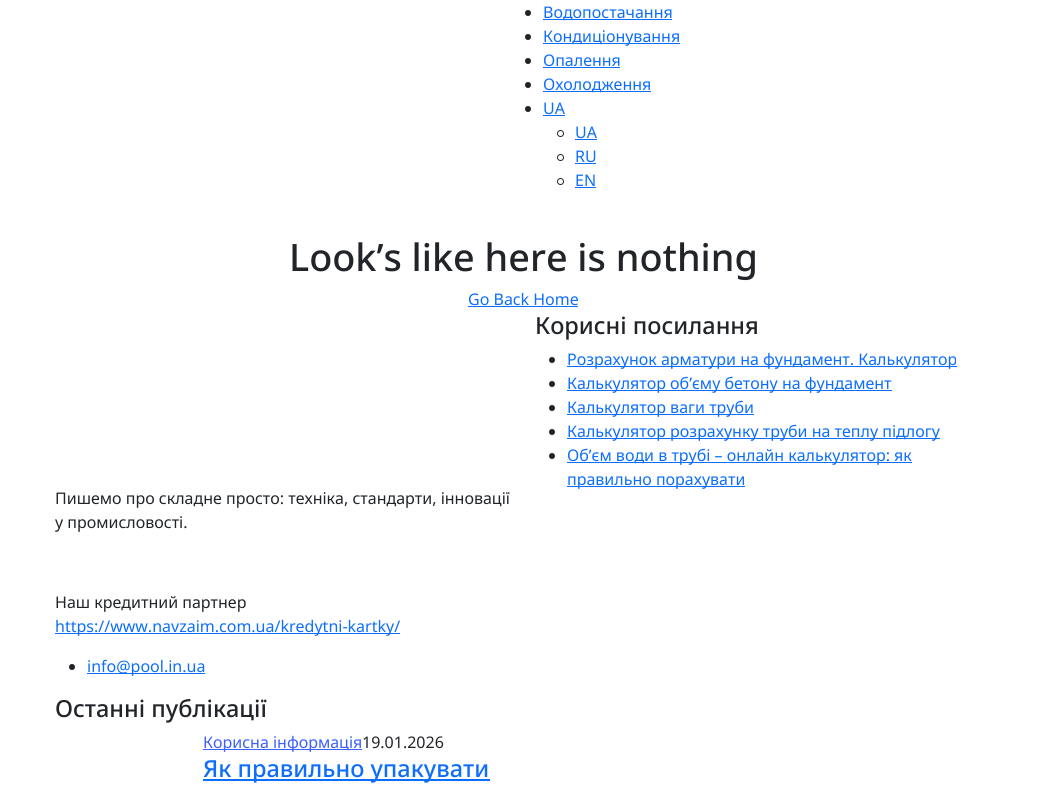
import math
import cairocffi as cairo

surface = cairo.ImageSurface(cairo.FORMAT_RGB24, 1046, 793)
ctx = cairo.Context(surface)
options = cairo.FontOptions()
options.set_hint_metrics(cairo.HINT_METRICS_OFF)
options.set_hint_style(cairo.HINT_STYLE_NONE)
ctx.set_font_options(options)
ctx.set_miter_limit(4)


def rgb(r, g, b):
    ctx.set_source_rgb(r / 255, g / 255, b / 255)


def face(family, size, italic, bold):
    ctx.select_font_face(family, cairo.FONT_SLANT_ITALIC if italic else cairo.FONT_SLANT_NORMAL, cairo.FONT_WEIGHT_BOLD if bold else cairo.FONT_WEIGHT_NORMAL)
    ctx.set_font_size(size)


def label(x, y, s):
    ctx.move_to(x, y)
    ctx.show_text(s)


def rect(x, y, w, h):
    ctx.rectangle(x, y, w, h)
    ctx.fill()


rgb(255, 255, 255)
ctx.paint()
rgb(33, 37, 41)
ctx.arc(528, 13, 3, 0, 2 * math.pi)
ctx.fill()
rgb(13, 110, 253)
rect(543, 19, 129, 1)
face('Noto Sans', 16, 0, 0)
label(543, 18, 'Водопостачання')
rgb(33, 37, 41)
ctx.new_path()
ctx.arc(528, 37, 3, 0, 2 * math.pi)
ctx.fill()
rgb(13, 110, 253)
rect(543, 43, 137, 1)
label(543, 42, 'Кондиціонування')
rgb(33, 37, 41)
ctx.new_path()
ctx.arc(528, 61, 3, 0, 2 * math.pi)
ctx.fill()
rgb(13, 110, 253)
label(543, 66, 'Опалення')
rect(543, 67, 77, 1)
rgb(33, 37, 41)
ctx.new_path()
ctx.arc(528, 85, 3, 0, 2 * math.pi)
ctx.fill()
rgb(13, 110, 253)
rect(543, 91, 108, 1)
label(543, 90, 'Охолодження')
rgb(33, 37, 41)
ctx.new_path()
ctx.arc(528, 109, 3, 0, 2 * math.pi)
ctx.fill()
rgb(13, 110, 253)
label(543, 114, 'UA')
rect(543, 115, 22, 1)
ctx.new_path()
ctx.arc(560.5, 133.5, 3, 0, 2 * math.pi)
rgb(33, 37, 41)
ctx.set_line_width(1)
ctx.stroke()
rgb(13, 110, 253)
label(575, 138, 'UA')
rect(575, 139, 22, 1)
ctx.new_path()
ctx.arc(560.5, 157.5, 3, 0, 2 * math.pi)
rgb(33, 37, 41)
ctx.stroke()
rgb(13, 110, 253)
label(575, 162, 'RU')
rect(575, 163, 21, 1)
ctx.new_path()
ctx.arc(560.5, 181.5, 3, 0, 2 * math.pi)
rgb(33, 37, 41)
ctx.stroke()
rgb(13, 110, 253)
label(575, 186, 'EN')
rect(575, 187, 21, 1)
face('Noto Sans Medium', 37.75, 0, 0)
rgb(33, 37, 41)
label(289, 271, 'Look’s like here is nothing')
face('Noto Sans', 16, 0, 0)
rgb(13, 110, 253)
label(468, 305, 'Go Back Home')
rect(468, 306, 110, 1)
face('Noto Sans Medium', 23.5, 0, 0)
rgb(33, 37, 41)
label(535, 334, 'Корисні посилання')
ctx.new_path()
ctx.arc(552, 360, 3, 0, 2 * math.pi)
ctx.fill()
rgb(13, 110, 253)
rect(567, 366, 390, 1)
face('Noto Sans', 16, 0, 0)
label(567, 365, 'Розрахунок арматури на фундамент. Калькулятор')
rgb(33, 37, 41)
ctx.new_path()
ctx.arc(552, 384, 3, 0, 2 * math.pi)
ctx.fill()
rgb(13, 110, 253)
rect(567, 390, 325, 1)
label(567, 389, 'Калькулятор об’єму бетону на фундамент')
rgb(33, 37, 41)
ctx.new_path()
ctx.arc(552, 408, 3, 0, 2 * math.pi)
ctx.fill()
rgb(13, 110, 253)
rect(567, 414, 187, 1)
label(567, 413, 'Калькулятор ваги труби')
rgb(33, 37, 41)
ctx.new_path()
ctx.arc(552, 432, 3, 0, 2 * math.pi)
ctx.fill()
rgb(13, 110, 253)
rect(567, 438, 373, 1)
label(567, 437, 'Калькулятор розрахунку труби на теплу підлогу')
rgb(33, 37, 41)
ctx.new_path()
ctx.arc(552, 456, 3, 0, 2 * math.pi)
ctx.fill()
rgb(13, 110, 253)
rect(567, 462, 345, 1)
label(567, 461, 'Об’єм води в трубі – онлайн калькулятор: як')
rect(567, 486, 178, 1)
label(567, 485, 'правильно порахувати')
rgb(33, 37, 41)
label(55, 504, 'Пишемо про складне просто: техніка, стандарти, інновації')
label(55, 528, 'у промисловості.')
label(55, 608, 'Наш кредитний партнер')
rgb(13, 110, 253)
rect(55, 633, 345, 1)
label(55, 632, 'https://www.navzaim.com.ua/kredytni-kartky/')
rgb(33, 37, 41)
ctx.new_path()
ctx.arc(72, 667, 3, 0, 2 * math.pi)
ctx.fill()
rgb(13, 110, 253)
rect(87, 673, 118, 1)
label(87, 672, 'info@pool.in.ua')
face('Noto Sans Medium', 23.5, 0, 0)
rgb(33, 37, 41)
label(55, 717, 'Останні публікації')
rgb(59, 96, 254)
rect(203, 749, 159, 1)
face('Noto Sans', 16, 0, 0)
label(203, 748, 'Корисна інформація')
rgb(33, 37, 41)
label(362, 748, '19.01.2026')
rgb(13, 110, 253)
rect(203, 779, 287, 2)
face('Noto Sans Medium', 23.5, 0, 0)
label(203, 777, 'Як правильно упакувати')
surface.write_to_png('render.png')
